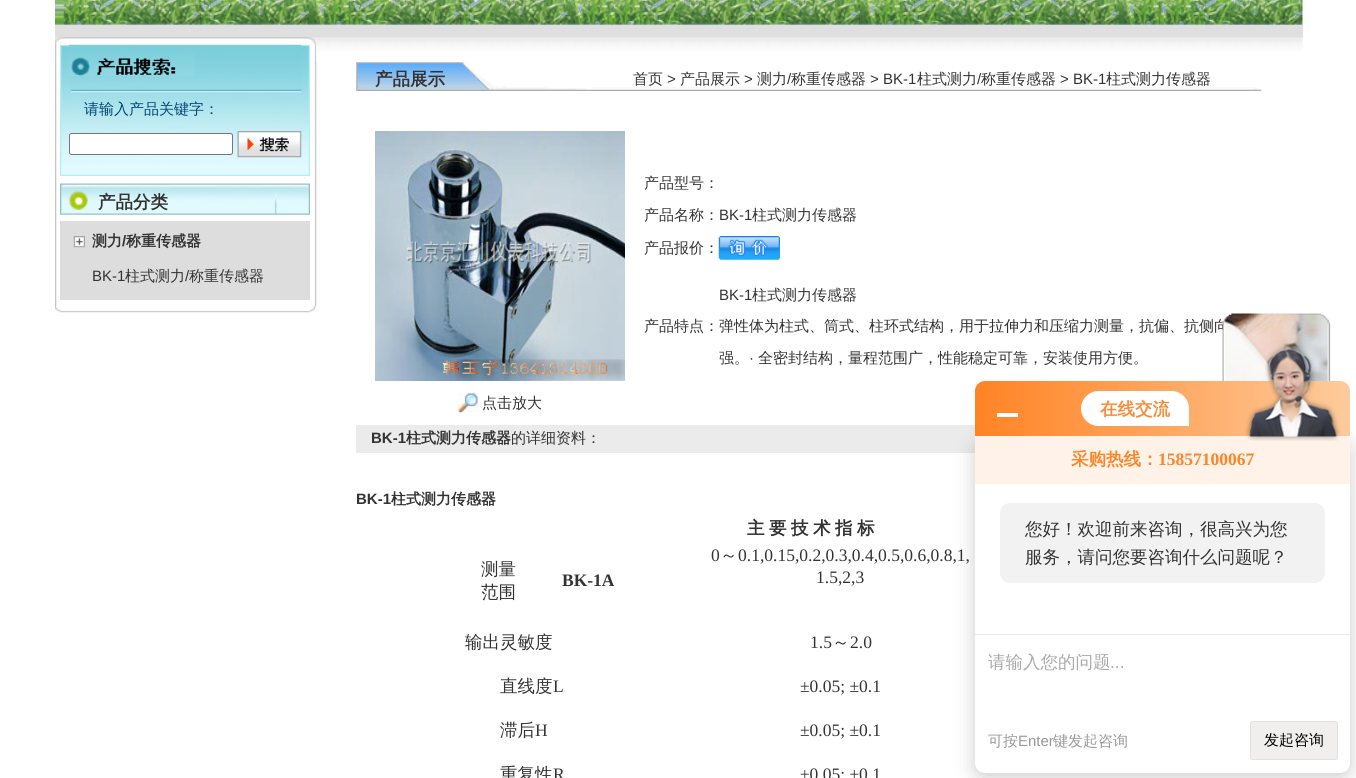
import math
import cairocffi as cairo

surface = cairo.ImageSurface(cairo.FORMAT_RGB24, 1356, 778)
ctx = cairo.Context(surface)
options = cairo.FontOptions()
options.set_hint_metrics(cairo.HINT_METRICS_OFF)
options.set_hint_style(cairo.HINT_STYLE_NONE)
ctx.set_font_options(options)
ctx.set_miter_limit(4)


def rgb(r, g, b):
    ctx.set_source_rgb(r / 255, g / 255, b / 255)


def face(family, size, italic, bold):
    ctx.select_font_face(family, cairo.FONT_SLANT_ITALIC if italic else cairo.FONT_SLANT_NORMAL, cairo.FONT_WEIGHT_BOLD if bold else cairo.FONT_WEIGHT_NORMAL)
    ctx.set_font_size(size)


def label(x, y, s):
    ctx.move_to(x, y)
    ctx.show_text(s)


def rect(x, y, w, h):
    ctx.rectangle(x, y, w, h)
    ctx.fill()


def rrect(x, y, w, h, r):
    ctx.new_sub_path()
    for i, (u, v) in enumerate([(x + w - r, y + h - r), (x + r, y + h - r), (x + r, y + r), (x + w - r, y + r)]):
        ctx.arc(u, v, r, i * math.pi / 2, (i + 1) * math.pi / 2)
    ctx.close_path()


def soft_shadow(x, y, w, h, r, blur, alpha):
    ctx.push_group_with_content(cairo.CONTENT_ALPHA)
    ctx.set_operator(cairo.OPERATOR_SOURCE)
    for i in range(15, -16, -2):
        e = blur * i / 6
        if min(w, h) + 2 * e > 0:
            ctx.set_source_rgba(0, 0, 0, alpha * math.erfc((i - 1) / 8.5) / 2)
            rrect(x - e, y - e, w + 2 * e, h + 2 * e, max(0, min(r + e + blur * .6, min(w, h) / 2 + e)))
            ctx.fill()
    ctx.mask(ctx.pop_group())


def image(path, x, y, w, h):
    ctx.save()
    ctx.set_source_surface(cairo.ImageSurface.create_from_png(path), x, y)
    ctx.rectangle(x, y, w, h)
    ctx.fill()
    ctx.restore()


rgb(255, 255, 255)
ctx.paint()
image('image0.png', 55, 0, 1248, 25)
rgb(223, 223, 223)
rect(55, 25, 1248, 13)
image('image2.png', 55, 44, 262, 262)
image('image3.png', 60, 44, 250, 132)
image('image10.png', 316, 37, 987, 25)
image('image1.png', 55, 37, 262, 8)
image('image4.png', 68, 44, 234, 49)
face('WenQuanYi Zen Hei Medium', 15, 0, 0)
rgb(2, 68, 114)
label(84, 114, '请输入产品关键字：')
rgb(255, 255, 255)
rrect(69.5, 133.5, 163, 21, 2)
ctx.fill_preserve()
rgb(118, 118, 118)
ctx.set_line_width(1)
ctx.stroke()
image('image5.png', 237, 131, 65, 27)
image('image6.png', 60, 183, 250, 32)
face('WenQuanYi Zen Hei', 17.5, 0, 1)
rgb(51, 51, 51)
label(98, 208, '产品分类')
rgb(221, 221, 221)
rect(60, 221, 250, 79)
image('image7.png', 73, 236, 12, 12)
face('WenQuanYi Zen Hei', 15, 0, 1)
rgb(51, 51, 51)
label(92, 246, '测力')
face('Liberation Sans', 15, 0, 1)
label(122, 246, '/')
face('WenQuanYi Zen Hei', 15, 0, 1)
label(126, 246, '称重传感器')
face('Liberation Sans', 15, 0, 0)
label(92, 281, 'BK-1')
face('WenQuanYi Zen Hei Medium', 15, 0, 0)
label(125, 281, '柱式测力')
face('Liberation Sans', 15, 0, 0)
label(185, 281, '/')
face('WenQuanYi Zen Hei Medium', 15, 0, 0)
label(189, 281, '称重传感器')
image('image8.png', 55, 306, 262, 7)
label(644, 331, '产品特点：弹性体为柱式、筒式、柱环式结构，用于拉伸力和压缩力测量，抗偏、抗侧向')
image('image9.png', 1222, 313, 109, 68)
image('image11.png', 356, 62, 906, 29)
face('WenQuanYi Zen Hei', 17.5, 0, 1)
label(375, 85, '产品展示')
face('WenQuanYi Zen Hei Medium', 15, 0, 0)
label(633, 84, '首页')
face('Liberation Sans', 15, 0, 0)
label(667, 84, '>')
face('WenQuanYi Zen Hei Medium', 15, 0, 0)
label(680, 84, '产品展示')
face('Liberation Sans', 15, 0, 0)
label(744, 84, '>')
face('WenQuanYi Zen Hei Medium', 15, 0, 0)
label(757, 84, '测力')
face('Liberation Sans', 15, 0, 0)
label(787, 84, '/')
face('WenQuanYi Zen Hei Medium', 15, 0, 0)
label(791, 84, '称重传感器')
face('Liberation Sans', 15, 0, 0)
label(870, 84, '> BK-1')
face('WenQuanYi Zen Hei Medium', 15, 0, 0)
label(917, 84, '柱式测力')
face('Liberation Sans', 15, 0, 0)
label(977, 84, '/')
face('WenQuanYi Zen Hei Medium', 15, 0, 0)
label(981, 84, '称重传感器')
face('Liberation Sans', 15, 0, 0)
label(1060, 84, '> BK-1')
face('WenQuanYi Zen Hei Medium', 15, 0, 0)
label(1106, 84, '柱式测力传感器')
label(644, 188, '产品型号：')
label(644, 220, '产品名称：')
face('Liberation Sans', 15, 0, 0)
label(719, 220, 'BK-1')
face('WenQuanYi Zen Hei Medium', 15, 0, 0)
label(752, 220, '柱式测力传感器')
label(644, 253, '产品报价：')
image('image12.png', 718, 236, 62, 24)
face('Liberation Sans', 15, 0, 0)
label(719, 300, 'BK-1')
face('WenQuanYi Zen Hei Medium', 15, 0, 0)
label(752, 300, '柱式测力传感器')
label(719, 363, '强。')
face('Liberation Sans', 15, 0, 0)
label(749, 363, '·')
face('WenQuanYi Zen Hei Medium', 15, 0, 0)
label(758, 363, '全密封结构，量程范围广，性能稳定可靠，安装使用方便。')
image('image13.png', 375, 131, 250, 250)
image('image14.png', 457, 392, 21, 21)
label(482, 408, '点击放大')
rgb(235, 235, 235)
rect(356, 425, 619, 28)
face('Liberation Sans', 15, 0, 1)
rgb(51, 51, 51)
label(371, 443, 'BK-1')
face('WenQuanYi Zen Hei', 15, 0, 1)
label(406, 443, '柱式测力传感器')
face('WenQuanYi Zen Hei Medium', 15, 0, 0)
label(511, 443, '的详细资料：')
face('Liberation Sans', 15, 0, 1)
label(356, 504, 'BK-1')
face('WenQuanYi Zen Hei', 15, 0, 1)
label(391, 504, '柱式测力传感器')
face('WenQuanYi Zen Hei', 17.5, 0, 1)
label(747, 534, '主')
label(769, 534, '要')
label(791, 534, '技')
label(813, 534, '术')
label(835, 534, '指')
label(857, 534, '标')
face('WenQuanYi Zen Hei Medium', 17.5, 0, 0)
label(481, 575, '测量')
label(481, 598, '范围')
face('Liberation Serif', 17.5, 0, 1)
label(562, 586, 'BK-1A')
face('Liberation Serif', 17.5, 0, 0)
label(711, 561, '0')
face('WenQuanYi Zen Hei Medium', 17.5, 0, 0)
label(720, 561, '～')
face('Liberation Serif', 17.5, 0, 0)
label(738, 561, '0.1,0.15,0.2,0.3,0.4,0.5,0.6,0.8,1,')
label(816, 583, '1.5,2,3')
face('WenQuanYi Zen Hei Medium', 17.5, 0, 0)
label(465, 648, '输出灵敏度')
face('Liberation Serif', 17.5, 0, 0)
label(810, 648, '1.5')
face('WenQuanYi Zen Hei Medium', 17.5, 0, 0)
label(832, 648, '～')
face('Liberation Serif', 17.5, 0, 0)
label(850, 648, '2.0')
face('WenQuanYi Zen Hei Medium', 17.5, 0, 0)
label(500, 692, '直线度')
face('Liberation Serif', 17.5, 0, 0)
label(553, 692, 'L')
label(800, 692, '±0.05; ±0.1')
face('WenQuanYi Zen Hei Medium', 17.5, 0, 0)
label(500, 736, '滞后')
face('Liberation Serif', 17.5, 0, 0)
label(535, 736, 'H')
label(800, 736, '±0.05; ±0.1')
face('WenQuanYi Zen Hei Medium', 17.5, 0, 0)
label(500, 780, '重复性')
face('Liberation Serif', 17.5, 0, 0)
label(553, 780, 'R')
label(800, 780, '±0.05; ±0.1')
rgb(0, 0, 0)
soft_shadow(975, 441, 375, 337, 10, 10, 0.2)
gradient = cairo.LinearGradient(975, 409, 1350, 409)
gradient.add_color_stop_rgba(0, 1, 0.514, 0.141, 1)
gradient.add_color_stop_rgba(1, 0.996, 0.796, 0.612, 1)
ctx.set_source(gradient)
ctx.new_path()
ctx.move_to(985, 381)
ctx.line_to(1340, 381)
ctx.curve_to(1345.5, 381, 1350, 385.5, 1350, 391)
ctx.line_to(1350, 436)
ctx.line_to(975, 436)
ctx.line_to(975, 391)
ctx.curve_to(975, 385.5, 979.5, 381, 985, 381)
ctx.close_path()
ctx.fill()
rgb(255, 255, 255)
rect(997, 413, 21, 4)
ctx.new_path()
ctx.move_to(1098.5, 391)
ctx.line_to(1171.5, 391)
ctx.curve_to(1181, 391, 1189, 399, 1189, 408.5)
ctx.line_to(1189, 426)
ctx.line_to(1098.5, 426)
ctx.curve_to(1089, 426, 1081, 418, 1081, 408.5)
ctx.curve_to(1081, 399, 1089, 391, 1098.5, 391)
ctx.close_path()
ctx.fill()
face('WenQuanYi Zen Hei', 17.5, 0, 1)
rgb(251, 139, 54)
label(1100, 415, '在线交流')
rgb(255, 255, 255)
ctx.new_path()
ctx.move_to(975, 436)
ctx.line_to(1350, 436)
ctx.line_to(1350, 763)
ctx.curve_to(1350, 768.5, 1345.5, 773, 1340, 773)
ctx.line_to(985, 773)
ctx.curve_to(979.5, 773, 975, 768.5, 975, 763)
ctx.close_path()
ctx.fill()
rgb(255, 243, 233)
rect(975, 436, 375, 48)
image('image15.png', 1245, 344, 96, 97)
rgb(255, 132, 38)
label(1071, 465, '采购热线：')
face('Liberation Serif', 17.5, 0, 1)
label(1158, 465, '15857100067')
rgb(242, 242, 242)
rrect(1000, 503, 325, 80, 10)
ctx.fill()
face('WenQuanYi Zen Hei Medium', 17.5, 0, 0)
rgb(51, 51, 51)
label(1025, 535, '您好！欢迎前来咨询，很高兴为您')
label(1025, 563, '服务，请问您要咨询什么问题呢？')
rgb(234, 234, 234)
rect(975, 634, 375, 1)
rgb(170, 170, 170)
label(988, 668, '请输入您的问题')
face('Liberation Sans', 17.5, 0, 0)
label(1110, 668, '...')
face('WenQuanYi Zen Hei Medium', 15, 0, 0)
rgb(153, 153, 153)
label(988, 746, '可按')
face('Liberation Sans', 15, 0, 0)
label(1018, 746, 'Enter')
face('WenQuanYi Zen Hei Medium', 15, 0, 0)
label(1053, 746, '键发起咨询')
rgb(240, 239, 237)
rrect(1250.5, 721.5, 87, 38, 2)
ctx.fill_preserve()
rgb(226, 226, 226)
ctx.stroke()
rgb(0, 0, 0)
label(1264, 745, '发起咨询')
surface.write_to_png('render.png')
